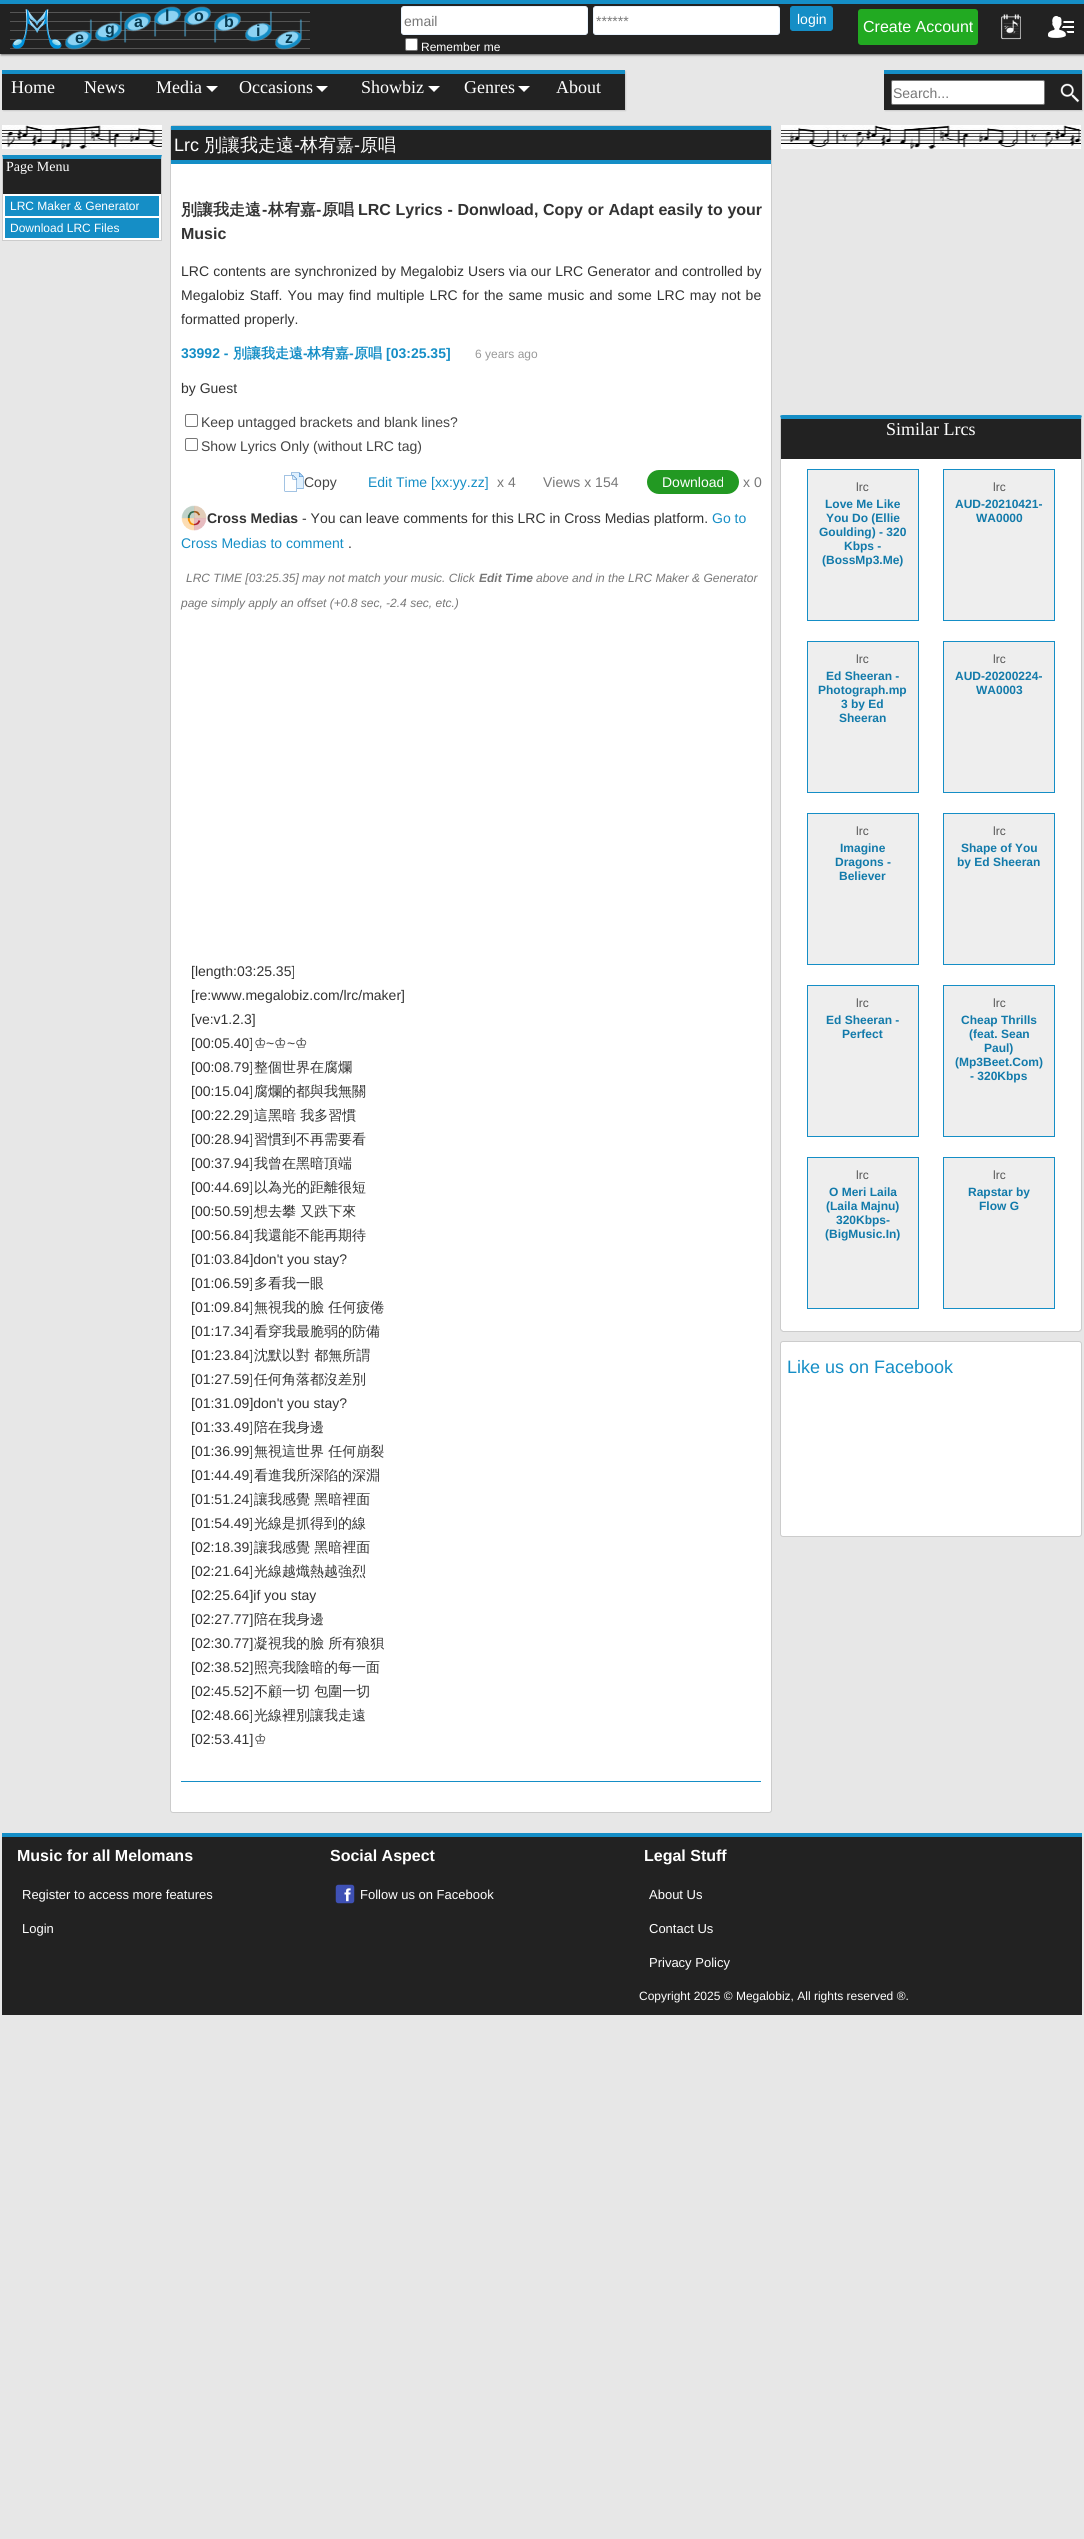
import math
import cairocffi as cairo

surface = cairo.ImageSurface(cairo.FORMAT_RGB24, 1084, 2539)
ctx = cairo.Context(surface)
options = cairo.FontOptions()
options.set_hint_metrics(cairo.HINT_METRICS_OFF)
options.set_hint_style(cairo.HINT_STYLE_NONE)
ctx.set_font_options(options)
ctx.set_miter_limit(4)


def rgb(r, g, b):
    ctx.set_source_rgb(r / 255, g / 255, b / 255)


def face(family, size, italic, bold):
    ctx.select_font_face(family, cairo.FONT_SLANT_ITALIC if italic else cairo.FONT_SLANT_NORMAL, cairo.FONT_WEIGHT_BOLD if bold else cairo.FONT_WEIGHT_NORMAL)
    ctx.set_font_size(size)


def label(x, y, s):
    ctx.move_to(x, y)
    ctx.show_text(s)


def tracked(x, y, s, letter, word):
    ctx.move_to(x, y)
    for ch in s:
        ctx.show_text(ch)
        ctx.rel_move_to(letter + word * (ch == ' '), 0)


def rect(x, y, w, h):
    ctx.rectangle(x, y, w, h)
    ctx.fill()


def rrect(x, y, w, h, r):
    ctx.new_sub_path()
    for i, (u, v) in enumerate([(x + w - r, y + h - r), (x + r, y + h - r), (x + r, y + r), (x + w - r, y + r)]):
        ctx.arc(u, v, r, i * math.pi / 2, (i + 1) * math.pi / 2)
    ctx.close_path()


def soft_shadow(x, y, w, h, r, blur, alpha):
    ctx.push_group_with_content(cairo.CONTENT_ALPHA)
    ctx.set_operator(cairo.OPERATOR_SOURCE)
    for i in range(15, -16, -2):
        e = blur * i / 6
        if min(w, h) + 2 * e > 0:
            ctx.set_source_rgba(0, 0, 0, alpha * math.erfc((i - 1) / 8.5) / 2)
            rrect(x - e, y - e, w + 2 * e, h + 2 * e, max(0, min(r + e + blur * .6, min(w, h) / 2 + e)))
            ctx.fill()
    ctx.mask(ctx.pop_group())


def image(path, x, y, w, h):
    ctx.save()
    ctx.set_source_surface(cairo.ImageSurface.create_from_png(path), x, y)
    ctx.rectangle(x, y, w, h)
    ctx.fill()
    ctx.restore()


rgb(231, 231, 231)
ctx.paint()
rgb(30, 30, 30)
soft_shadow(1, 1, 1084, 54, 0, 1, 0.6)
rgb(34, 34, 34)
rect(0, 4, 1084, 50)
rgb(21, 142, 198)
rect(0, 0, 1084, 4)
rgb(85, 85, 85)
rect(10, 12, 300, 1)
rect(10, 21, 300, 1)
rect(10, 30, 300, 1)
rect(10, 39, 300, 1)
rect(10, 48, 300, 1)
image('image0.png', 12, 9, 50, 40)
image('image1.png', 154, 6, 27, 31)
face('Liberation Sans', 16, 0, 1)
rgb(8, 58, 80)
label(165, 21, 'l')
image('image2.png', 124, 12, 27, 31)
label(134, 27, 'a')
image('image1.png', 184, 6, 27, 31)
label(194, 21, 'o')
image('image2.png', 214, 12, 27, 31)
label(224, 27, 'b')
image('image3.png', 95, 11, 27, 31)
label(105, 34, 'g')
image('image3.png', 245, 11, 27, 31)
label(256, 36, 'i')
image('image4.png', 65, 19, 27, 31)
label(75, 43, 'e')
image('image4.png', 275, 19, 27, 31)
label(285, 43, 'z')
rgb(255, 255, 255)
rrect(401.5, 6.5, 186, 28, 2.5)
ctx.fill_preserve()
rgb(233, 243, 253)
ctx.set_line_width(1)
ctx.stroke()
face('Liberation Sans', 14, 0, 0)
rgb(119, 119, 119)
label(404, 26, 'email')
rgb(255, 255, 255)
rrect(593.5, 6.5, 186, 28, 2.5)
ctx.fill_preserve()
rgb(233, 243, 253)
ctx.stroke()
rgb(119, 119, 119)
label(596, 26, '******')
rgb(255, 255, 255)
rrect(405.5, 38.5, 12, 12, 1.5)
ctx.fill_preserve()
rgb(118, 118, 118)
ctx.stroke()
face('Liberation Sans', 12, 0, 0)
rgb(255, 255, 255)
label(421, 51, 'Remember me')
rgb(21, 142, 198)
rrect(790.5, 6.5, 42, 24, 2.5)
ctx.fill_preserve()
ctx.stroke()
face('Liberation Sans', 14, 0, 0)
rgb(255, 255, 255)
label(797, 24, 'login')
rgb(34, 170, 34)
rrect(858, 9, 120, 36, 3)
ctx.fill()
face('Liberation Sans', 16, 0, 0)
rgb(255, 255, 255)
label(863, 32, 'Create Account')
image('image5.png', 1001, 14, 20, 26)
image('image6.png', 1048, 16, 26, 22)
rgb(204, 204, 204)
soft_shadow(3, 71, 623, 40, 0, 0.5, 1)
rgb(34, 34, 34)
rect(2, 74, 623, 36)
rgb(21, 142, 198)
rect(2, 70, 623, 4)
face('Liberation Serif', 18, 0, 0)
rgb(255, 255, 255)
label(11, 93, 'Home')
label(84, 93, 'News')
label(156, 93, 'Media')
ctx.new_path()
ctx.move_to(206, 86)
ctx.line_to(218, 86)
ctx.line_to(212, 92)
ctx.close_path()
ctx.fill()
label(239, 93, 'Occasions')
ctx.new_path()
ctx.move_to(316, 86)
ctx.line_to(328, 86)
ctx.line_to(322, 92)
ctx.close_path()
ctx.fill()
label(361, 93, 'Showbiz')
ctx.new_path()
ctx.move_to(428, 86)
ctx.line_to(440, 86)
ctx.line_to(434, 92)
ctx.close_path()
ctx.fill()
label(464, 93, 'Genres')
ctx.new_path()
ctx.move_to(518, 86)
ctx.line_to(530, 86)
ctx.line_to(524, 92)
ctx.close_path()
ctx.fill()
label(556, 93, 'About')
rgb(204, 204, 204)
soft_shadow(885, 71, 198, 40, 0, 0.5, 1)
rgb(34, 34, 34)
rect(884, 74, 198, 36)
rgb(21, 142, 198)
rect(884, 70, 198, 4)
rgb(255, 255, 255)
rrect(891.5, 80.5, 153, 24, 1.5)
ctx.fill_preserve()
rgb(118, 118, 118)
ctx.stroke()
face('Liberation Sans', 14, 0, 0)
rgb(119, 119, 119)
label(893, 98, 'Search...')
image('image7.png', 1060, 83, 20, 20)
image('image8.png', 2, 125, 160, 24)
rgb(255, 255, 255)
rect(3, 194, 158, 46)
rgb(21, 142, 198)
ctx.new_path()
ctx.move_to(2, 155)
ctx.line_to(162, 155)
ctx.line_to(161, 159)
ctx.line_to(3, 159)
ctx.close_path()
ctx.fill()
rgb(204, 204, 204)
ctx.new_path()
ctx.move_to(162, 155)
ctx.line_to(162, 241)
ctx.line_to(161, 240)
ctx.line_to(161, 159)
ctx.close_path()
ctx.fill()
rect(2, 240, 160, 1)
ctx.new_path()
ctx.move_to(2, 241)
ctx.line_to(2, 155)
ctx.line_to(3, 159)
ctx.line_to(3, 240)
ctx.close_path()
ctx.fill()
rgb(34, 34, 34)
rect(3, 159, 158, 35)
face('Liberation Serif', 14, 0, 0)
rgb(255, 255, 255)
label(6, 171, 'Page Menu')
rgb(21, 142, 198)
rect(5, 196, 154, 20)
face('Liberation Sans', 12, 0, 0)
rgb(255, 255, 255)
label(10, 210, 'LRC Maker & Generator')
rgb(21, 142, 198)
rect(5, 218, 154, 20)
rgb(255, 255, 255)
label(10, 232, 'Download LRC Files')
rrect(170.5, 125.5, 601, 1687, 2.5)
ctx.fill_preserve()
rgb(204, 204, 204)
ctx.stroke()
rgb(21, 142, 198)
rect(171, 126, 600, 38)
rgb(34, 34, 34)
rect(171, 130, 600, 30)
face('Liberation Sans', 18, 0, 0)
rgb(255, 255, 255)
label(174, 151, 'Lrc')
face('WenQuanYi Zen Hei Medium', 18, 0, 0)
label(204, 151, '別讓我走遠')
face('Liberation Sans', 18, 0, 0)
label(294, 151, '-')
face('WenQuanYi Zen Hei Medium', 18, 0, 0)
label(300, 151, '林宥嘉')
face('Liberation Sans', 18, 0, 0)
label(354, 151, '-')
face('WenQuanYi Zen Hei Medium', 18, 0, 0)
label(360, 151, '原唱')
face('WenQuanYi Zen Hei', 16, 0, 1)
rgb(51, 51, 51)
label(181, 215, '別讓我走遠')
face('Liberation Sans', 16, 0, 1)
label(262, 215, '-')
face('WenQuanYi Zen Hei', 16, 0, 1)
label(268, 215, '林宥嘉')
face('Liberation Sans', 16, 0, 1)
label(316, 215, '-')
face('WenQuanYi Zen Hei', 16, 0, 1)
label(322, 215, '原唱')
face('Liberation Sans', 16, 0, 1)
tracked(358, 215, 'LRC Lyrics - Donwload, Copy or Adapt easily to your', 0, 0.25)
label(181, 239, 'Music')
face('Liberation Sans', 14, 0, 0)
tracked(181, 276, 'LRC contents are synchronized by Megalobiz Users via our LRC Generator and controlled by', 0, 0.25)
tracked(181, 300, 'Megalobiz Staff. You may find multiple LRC for the same music and some LRC may not be', 0, 1.1)
label(181, 324, 'formatted properly.')
rgb(21, 142, 198)
rect(181, 1781, 580, 1)
face('Liberation Sans', 14, 0, 1)
label(181, 358, '33992 -')
face('WenQuanYi Zen Hei', 14, 0, 1)
label(233, 358, '別讓我走遠')
face('Liberation Sans', 14, 0, 1)
label(303, 358, '-')
face('WenQuanYi Zen Hei', 14, 0, 1)
label(307, 358, '林宥嘉')
face('Liberation Sans', 14, 0, 1)
label(349, 358, '-')
face('WenQuanYi Zen Hei', 14, 0, 1)
label(354, 358, '原唱')
face('Liberation Sans', 14, 0, 1)
label(386, 358, '[03:25.35]')
face('Liberation Sans', 12, 0, 0)
rgb(153, 153, 153)
label(475, 358, '6 years ago')
face('Liberation Sans', 14, 0, 0)
rgb(51, 51, 51)
label(181, 393, 'by Guest')
rrect(185.5, 414.5, 12, 12, 1.5)
rgb(118, 118, 118)
ctx.stroke()
rgb(68, 68, 68)
label(201, 427, 'Keep untagged brackets and blank lines?')
rrect(185.5, 438.5, 12, 12, 1.5)
rgb(118, 118, 118)
ctx.stroke()
rgb(68, 68, 68)
label(201, 451, 'Show Lyrics Only (without LRC tag)')
image('image9.png', 284, 472, 20, 20)
label(304, 487, 'Copy')
rgb(21, 142, 198)
label(368, 487, 'Edit Time [xx:yy.zz]')
rgb(119, 119, 119)
label(497, 487, 'x 4')
label(543, 487, 'Views x 154')
rgb(34, 153, 34)
rrect(647, 470, 92, 24, 12)
ctx.fill()
rgb(255, 255, 255)
label(662, 487, 'Download')
rgb(119, 119, 119)
label(743, 487, 'x 0')
image('image10.png', 181, 505, 26, 26)
face('Liberation Sans', 14, 0, 1)
rgb(51, 51, 51)
label(207, 523, 'Cross Medias')
face('Liberation Sans', 14, 0, 0)
label(302, 523, '- You can leave comments for this LRC in Cross Medias platform.')
rgb(21, 142, 198)
label(712, 523, 'Go to')
label(181, 548, 'Cross Medias to comment')
rgb(51, 51, 51)
label(348, 548, '.')
face('Liberation Sans', 12, 1, 0)
rgb(119, 119, 119)
label(186, 582, 'LRC TIME [03:25.35] may not match your music. Click')
face('Liberation Sans', 12, 1, 1)
label(479, 582, 'Edit Time')
face('Liberation Sans', 12, 1, 0)
label(536, 582, 'above and in the LRC Maker & Generator')
label(181, 607, 'page simply apply an offset (+0.8 sec, -2.4 sec, etc.)')
face('Liberation Sans', 14, 0, 0)
rgb(51, 51, 51)
label(191, 976, '[length:03:25.35]')
label(191, 1000, '[re:www.megalobiz.com/lrc/maker]')
label(191, 1024, '[ve:v1.2.3]')
label(191, 1048, '[00:05.40]')
face('DejaVu Sans', 14, 0, 0)
label(254, 1048, '♔')
face('Liberation Sans', 14, 0, 0)
label(266, 1048, '~')
face('DejaVu Sans', 14, 0, 0)
label(274, 1048, '♔')
face('Liberation Sans', 14, 0, 0)
label(287, 1048, '~')
face('DejaVu Sans', 14, 0, 0)
label(295, 1048, '♔')
face('Liberation Sans', 14, 0, 0)
label(191, 1072, '[00:08.79]')
face('WenQuanYi Zen Hei Medium', 14, 0, 0)
label(254, 1072, '整個世界在腐爛')
face('Liberation Sans', 14, 0, 0)
label(191, 1096, '[00:15.04]')
face('WenQuanYi Zen Hei Medium', 14, 0, 0)
label(254, 1096, '腐爛的都與我無關')
face('Liberation Sans', 14, 0, 0)
label(191, 1120, '[00:22.29]')
face('WenQuanYi Zen Hei Medium', 14, 0, 0)
label(254, 1120, '這黑暗 我多習慣')
face('Liberation Sans', 14, 0, 0)
label(191, 1144, '[00:28.94]')
face('WenQuanYi Zen Hei Medium', 14, 0, 0)
label(254, 1144, '習慣到不再需要看')
face('Liberation Sans', 14, 0, 0)
label(191, 1168, '[00:37.94]')
face('WenQuanYi Zen Hei Medium', 14, 0, 0)
label(254, 1168, '我曾在黑暗頂端')
face('Liberation Sans', 14, 0, 0)
label(191, 1192, '[00:44.69]')
face('WenQuanYi Zen Hei Medium', 14, 0, 0)
label(254, 1192, '以為光的距離很短')
face('Liberation Sans', 14, 0, 0)
label(191, 1216, '[00:50.59]')
face('WenQuanYi Zen Hei Medium', 14, 0, 0)
label(254, 1216, '想去攀 又跌下來')
face('Liberation Sans', 14, 0, 0)
label(191, 1240, '[00:56.84]')
face('WenQuanYi Zen Hei Medium', 14, 0, 0)
label(254, 1240, '我還能不能再期待')
face('Liberation Sans', 14, 0, 0)
label(191, 1264, '[01:03.84]don\'t you stay?')
label(191, 1288, '[01:06.59]')
face('WenQuanYi Zen Hei Medium', 14, 0, 0)
label(254, 1288, '多看我一眼')
face('Liberation Sans', 14, 0, 0)
label(191, 1312, '[01:09.84]')
face('WenQuanYi Zen Hei Medium', 14, 0, 0)
label(254, 1312, '無視我的臉 任何疲倦')
face('Liberation Sans', 14, 0, 0)
label(191, 1336, '[01:17.34]')
face('WenQuanYi Zen Hei Medium', 14, 0, 0)
label(254, 1336, '看穿我最脆弱的防備')
face('Liberation Sans', 14, 0, 0)
label(191, 1360, '[01:23.84]')
face('WenQuanYi Zen Hei Medium', 14, 0, 0)
label(254, 1360, '沈默以對 都無所謂')
face('Liberation Sans', 14, 0, 0)
label(191, 1384, '[01:27.59]')
face('WenQuanYi Zen Hei Medium', 14, 0, 0)
label(254, 1384, '任何角落都沒差別')
face('Liberation Sans', 14, 0, 0)
label(191, 1408, '[01:31.09]don\'t you stay?')
label(191, 1432, '[01:33.49]')
face('WenQuanYi Zen Hei Medium', 14, 0, 0)
label(254, 1432, '陪在我身邊')
face('Liberation Sans', 14, 0, 0)
label(191, 1456, '[01:36.99]')
face('WenQuanYi Zen Hei Medium', 14, 0, 0)
label(254, 1456, '無視這世界 任何崩裂')
face('Liberation Sans', 14, 0, 0)
label(191, 1480, '[01:44.49]')
face('WenQuanYi Zen Hei Medium', 14, 0, 0)
label(254, 1480, '看進我所深陷的深淵')
face('Liberation Sans', 14, 0, 0)
label(191, 1504, '[01:51.24]')
face('WenQuanYi Zen Hei Medium', 14, 0, 0)
label(254, 1504, '讓我感覺 黑暗裡面')
face('Liberation Sans', 14, 0, 0)
label(191, 1528, '[01:54.49]')
face('WenQuanYi Zen Hei Medium', 14, 0, 0)
label(254, 1528, '光線是抓得到的線')
face('Liberation Sans', 14, 0, 0)
label(191, 1552, '[02:18.39]')
face('WenQuanYi Zen Hei Medium', 14, 0, 0)
label(254, 1552, '讓我感覺 黑暗裡面')
face('Liberation Sans', 14, 0, 0)
label(191, 1576, '[02:21.64]')
face('WenQuanYi Zen Hei Medium', 14, 0, 0)
label(254, 1576, '光線越熾熱越強烈')
face('Liberation Sans', 14, 0, 0)
label(191, 1600, '[02:25.64]if you stay')
label(191, 1624, '[02:27.77]')
face('WenQuanYi Zen Hei Medium', 14, 0, 0)
label(254, 1624, '陪在我身邊')
face('Liberation Sans', 14, 0, 0)
label(191, 1648, '[02:30.77]')
face('WenQuanYi Zen Hei Medium', 14, 0, 0)
label(254, 1648, '凝視我的臉 所有狼狽')
face('Liberation Sans', 14, 0, 0)
label(191, 1672, '[02:38.52]')
face('WenQuanYi Zen Hei Medium', 14, 0, 0)
label(254, 1672, '照亮我陰暗的每一面')
face('Liberation Sans', 14, 0, 0)
label(191, 1696, '[02:45.52]')
face('WenQuanYi Zen Hei Medium', 14, 0, 0)
label(254, 1696, '不顧一切 包圍一切')
face('Liberation Sans', 14, 0, 0)
label(191, 1720, '[02:48.66]')
face('WenQuanYi Zen Hei Medium', 14, 0, 0)
label(254, 1720, '光線裡別讓我走遠')
face('Liberation Sans', 14, 0, 0)
label(191, 1744, '[02:53.41]')
face('DejaVu Sans', 14, 0, 0)
label(254, 1744, '♔')
image('image11.png', 781, 125, 300, 24)
rgb(255, 255, 255)
ctx.new_path()
ctx.move_to(783, 419)
ctx.line_to(1081, 419)
ctx.line_to(1081, 1329)
ctx.curve_to(1081, 1330, 1080, 1331, 1079, 1331)
ctx.line_to(783, 1331)
ctx.curve_to(782, 1331, 781, 1330, 781, 1329)
ctx.line_to(781, 419)
ctx.close_path()
ctx.fill()
rgb(21, 142, 198)
ctx.new_path()
ctx.move_to(783, 415)
ctx.curve_to(782, 415, 781, 415, 780, 416)
ctx.line_to(781, 419)
ctx.line_to(1081, 419)
ctx.line_to(1082, 416)
ctx.curve_to(1081, 415, 1080, 415, 1079, 415)
ctx.close_path()
ctx.fill()
rgb(204, 204, 204)
ctx.new_path()
ctx.move_to(1082, 1329)
ctx.line_to(1082, 416)
ctx.line_to(1081, 419)
ctx.line_to(1081, 1329)
ctx.line_to(1080, 1330)
ctx.line_to(1081, 1331)
ctx.close_path()
ctx.fill()
ctx.new_path()
ctx.move_to(783, 1332)
ctx.line_to(1079, 1332)
ctx.line_to(1081, 1331)
ctx.line_to(1080, 1330)
ctx.line_to(1079, 1331)
ctx.line_to(783, 1331)
ctx.line_to(782, 1330)
ctx.line_to(781, 1331)
ctx.close_path()
ctx.fill()
ctx.new_path()
ctx.move_to(780, 418)
ctx.line_to(780, 1329)
ctx.line_to(781, 1331)
ctx.line_to(782, 1330)
ctx.line_to(781, 1329)
ctx.line_to(781, 419)
ctx.line_to(780, 416)
ctx.close_path()
ctx.fill()
rgb(34, 34, 34)
rect(781, 419, 300, 40)
face('Liberation Serif', 18, 0, 0)
rgb(255, 255, 255)
label(886, 435, 'Similar Lrcs')
rgb(238, 238, 238)
ctx.rectangle(807.5, 469.5, 111, 151)
ctx.fill_preserve()
rgb(21, 142, 198)
ctx.stroke()
face('Liberation Sans', 12, 0, 0)
rgb(85, 85, 85)
label(856, 491, 'lrc')
face('Liberation Sans', 12, 0, 1)
rgb(18, 122, 170)
label(825, 508, 'Love Me Like')
label(826, 522, 'You Do (Ellie')
label(819, 536, 'Goulding) - 320')
label(844, 550, 'Kbps -')
label(822, 564, '(BossMp3.Me)')
rgb(238, 238, 238)
ctx.rectangle(943.5, 469.5, 111, 151)
ctx.fill_preserve()
rgb(21, 142, 198)
ctx.stroke()
face('Liberation Sans', 12, 0, 0)
rgb(85, 85, 85)
label(993, 491, 'lrc')
face('Liberation Sans', 12, 0, 1)
rgb(18, 122, 170)
label(955, 508, 'AUD-20210421-')
label(976, 522, 'WA0000')
rgb(238, 238, 238)
ctx.rectangle(807.5, 641.5, 111, 151)
ctx.fill_preserve()
rgb(21, 142, 198)
ctx.stroke()
face('Liberation Sans', 12, 0, 0)
rgb(85, 85, 85)
label(856, 663, 'lrc')
face('Liberation Sans', 12, 0, 1)
rgb(18, 122, 170)
label(826, 680, 'Ed Sheeran -')
label(818, 694, 'Photograph.mp')
label(841, 708, '3 by Ed')
label(839, 722, 'Sheeran')
rgb(238, 238, 238)
ctx.rectangle(943.5, 641.5, 111, 151)
ctx.fill_preserve()
rgb(21, 142, 198)
ctx.stroke()
face('Liberation Sans', 12, 0, 0)
rgb(85, 85, 85)
label(993, 663, 'lrc')
face('Liberation Sans', 12, 0, 1)
rgb(18, 122, 170)
label(955, 680, 'AUD-20200224-')
label(976, 694, 'WA0003')
rgb(238, 238, 238)
ctx.rectangle(807.5, 813.5, 111, 151)
ctx.fill_preserve()
rgb(21, 142, 198)
ctx.stroke()
face('Liberation Sans', 12, 0, 0)
rgb(85, 85, 85)
label(856, 835, 'lrc')
face('Liberation Sans', 12, 0, 1)
rgb(18, 122, 170)
label(840, 852, 'Imagine')
label(835, 866, 'Dragons -')
label(839, 880, 'Believer')
rgb(238, 238, 238)
ctx.rectangle(943.5, 813.5, 111, 151)
ctx.fill_preserve()
rgb(21, 142, 198)
ctx.stroke()
face('Liberation Sans', 12, 0, 0)
rgb(85, 85, 85)
label(993, 835, 'lrc')
face('Liberation Sans', 12, 0, 1)
rgb(18, 122, 170)
label(961, 852, 'Shape of You')
label(957, 866, 'by Ed Sheeran')
rgb(238, 238, 238)
ctx.rectangle(807.5, 985.5, 111, 151)
ctx.fill_preserve()
rgb(21, 142, 198)
ctx.stroke()
face('Liberation Sans', 12, 0, 0)
rgb(85, 85, 85)
label(856, 1007, 'lrc')
face('Liberation Sans', 12, 0, 1)
rgb(18, 122, 170)
label(826, 1024, 'Ed Sheeran -')
label(842, 1038, 'Perfect')
rgb(238, 238, 238)
ctx.rectangle(943.5, 985.5, 111, 151)
ctx.fill_preserve()
rgb(21, 142, 198)
ctx.stroke()
face('Liberation Sans', 12, 0, 0)
rgb(85, 85, 85)
label(993, 1007, 'lrc')
face('Liberation Sans', 12, 0, 1)
rgb(18, 122, 170)
label(961, 1024, 'Cheap Thrills')
label(969, 1038, '(feat. Sean')
label(984, 1052, 'Paul)')
label(955, 1066, '(Mp3Beet.Com)')
label(970, 1080, '- 320Kbps')
rgb(238, 238, 238)
ctx.rectangle(807.5, 1157.5, 111, 151)
ctx.fill_preserve()
rgb(21, 142, 198)
ctx.stroke()
face('Liberation Sans', 12, 0, 0)
rgb(85, 85, 85)
label(856, 1179, 'lrc')
face('Liberation Sans', 12, 0, 1)
rgb(18, 122, 170)
label(829, 1196, 'O Meri Laila')
label(826, 1210, '(Laila Majnu)')
label(836, 1224, '320Kbps-')
label(825, 1238, '(BigMusic.In)')
rgb(238, 238, 238)
ctx.rectangle(943.5, 1157.5, 111, 151)
ctx.fill_preserve()
rgb(21, 142, 198)
ctx.stroke()
face('Liberation Sans', 12, 0, 0)
rgb(85, 85, 85)
label(993, 1179, 'lrc')
face('Liberation Sans', 12, 0, 1)
rgb(18, 122, 170)
label(968, 1196, 'Rapstar by')
label(979, 1210, 'Flow G')
rgb(255, 255, 255)
rrect(780.5, 1341.5, 301, 195, 2.5)
ctx.fill_preserve()
rgb(204, 204, 204)
ctx.stroke()
face('Liberation Sans', 18, 0, 0)
rgb(21, 142, 198)
label(787, 1373, 'Like us on Facebook')
rgb(34, 34, 34)
rect(2, 1837, 1080, 178)
rgb(21, 142, 198)
rect(2, 1833, 1080, 4)
face('Liberation Sans', 16, 0, 1)
rgb(255, 255, 255)
label(17, 1861, 'Music for all Melomans')
face('Liberation Sans', 13, 0, 0)
label(22, 1899, 'Register to access more features')
label(22, 1933, 'Login')
face('Liberation Sans', 16, 0, 1)
label(330, 1861, 'Social Aspect')
image('image12.png', 335, 1884, 20, 20)
face('Liberation Sans', 13, 0, 0)
label(360, 1899, 'Follow us on Facebook')
face('Liberation Sans', 16, 0, 1)
label(644, 1861, 'Legal Stuff')
face('Liberation Sans', 13, 0, 0)
label(649, 1899, 'About Us')
label(649, 1933, 'Contact Us')
label(649, 1967, 'Privacy Policy')
face('Liberation Sans', 12, 0, 0)
label(639, 2000, 'Copyright 2025 © Megalobiz, All rights reserved ®.')
surface.write_to_png('render.png')
